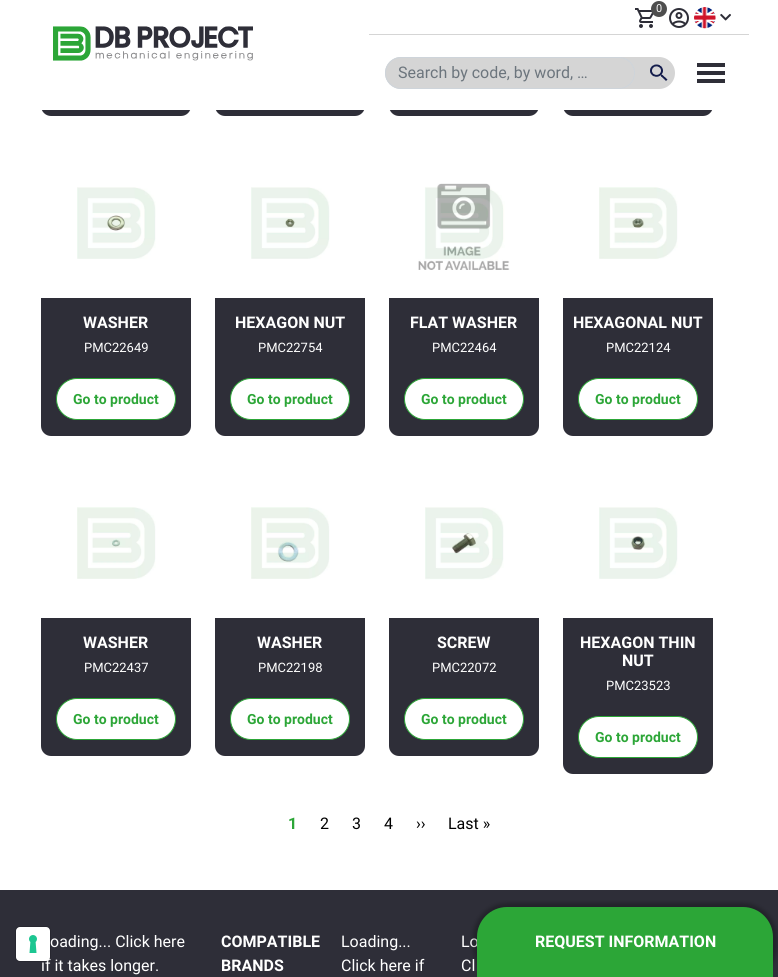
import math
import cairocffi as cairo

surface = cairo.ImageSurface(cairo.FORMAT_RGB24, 778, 977)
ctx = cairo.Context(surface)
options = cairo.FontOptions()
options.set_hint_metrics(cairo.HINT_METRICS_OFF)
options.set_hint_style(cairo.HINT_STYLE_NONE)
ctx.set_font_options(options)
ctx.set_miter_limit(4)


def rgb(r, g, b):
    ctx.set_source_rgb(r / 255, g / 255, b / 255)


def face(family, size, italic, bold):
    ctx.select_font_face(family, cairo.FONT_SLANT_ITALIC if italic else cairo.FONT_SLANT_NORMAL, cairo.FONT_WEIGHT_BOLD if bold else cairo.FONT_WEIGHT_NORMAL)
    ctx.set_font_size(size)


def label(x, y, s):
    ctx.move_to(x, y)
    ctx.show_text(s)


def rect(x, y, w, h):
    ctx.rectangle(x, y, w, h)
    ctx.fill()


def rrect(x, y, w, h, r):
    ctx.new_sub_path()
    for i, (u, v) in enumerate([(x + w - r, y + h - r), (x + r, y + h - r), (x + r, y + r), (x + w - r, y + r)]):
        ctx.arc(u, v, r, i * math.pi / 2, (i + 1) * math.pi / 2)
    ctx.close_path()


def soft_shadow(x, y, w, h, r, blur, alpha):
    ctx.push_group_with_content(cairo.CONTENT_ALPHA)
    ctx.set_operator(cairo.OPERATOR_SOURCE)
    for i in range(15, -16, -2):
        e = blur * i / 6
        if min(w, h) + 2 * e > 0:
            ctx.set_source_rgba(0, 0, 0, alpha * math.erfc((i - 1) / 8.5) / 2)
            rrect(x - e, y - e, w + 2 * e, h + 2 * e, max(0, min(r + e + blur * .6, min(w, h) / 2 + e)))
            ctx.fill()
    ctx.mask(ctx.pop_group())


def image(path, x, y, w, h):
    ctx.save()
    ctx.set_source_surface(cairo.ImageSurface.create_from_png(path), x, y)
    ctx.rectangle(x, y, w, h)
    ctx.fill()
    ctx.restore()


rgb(255, 255, 255)
ctx.paint()
rgb(46, 46, 56)
rect(0, 890, 778, 87)
face('Roboto', 16, 0, 0)
rgb(255, 255, 255)
label(50, 947, 'oading... Click here')
label(41, 971, 'if it takes longer.')
rrect(15.5, 926.5, 35, 35, 4.5)
ctx.set_source_rgba(0, 0, 0, 0.15)
ctx.set_line_width(1)
ctx.stroke()
rgb(255, 255, 255)
rrect(16, 927, 34, 34, 4)
ctx.fill()
image('image0.png', 29, 935, 8, 18)
image('image1.png', 635, 8, 19, 20)
rgb(78, 78, 78)
ctx.arc(659, 9, 8, 0, 2 * math.pi)
ctx.fill()
face('Roboto', 11, 0, 0)
rgb(255, 255, 255)
label(656, 12, '0')
image('image2.png', 669, 8, 20, 20)
image('image3.png', 694, 7, 22, 22)
image('image4.png', 720, 13, 11, 8)
rgb(213, 213, 213)
rect(369, 34, 380, 1)
rgb(46, 46, 56)
ctx.new_path()
ctx.move_to(41, 43)
ctx.line_to(191, 43)
ctx.line_to(191, 106)
ctx.curve_to(191, 111.5, 186.5, 116, 181, 116)
ctx.line_to(51, 116)
ctx.curve_to(45.5, 116, 41, 111.5, 41, 106)
ctx.close_path()
ctx.fill()
ctx.new_path()
ctx.move_to(215, 43)
ctx.line_to(365, 43)
ctx.line_to(365, 106)
ctx.curve_to(365, 111.5, 360.5, 116, 355, 116)
ctx.line_to(225, 116)
ctx.curve_to(219.5, 116, 215, 111.5, 215, 106)
ctx.close_path()
ctx.fill()
ctx.new_path()
ctx.move_to(389, 43)
ctx.line_to(539, 43)
ctx.line_to(539, 106)
ctx.curve_to(539, 111.5, 534.5, 116, 529, 116)
ctx.line_to(399, 116)
ctx.curve_to(393.5, 116, 389, 111.5, 389, 106)
ctx.close_path()
ctx.fill()
ctx.new_path()
ctx.move_to(563, 43)
ctx.line_to(713, 43)
ctx.line_to(713, 106)
ctx.curve_to(713, 111.5, 708.5, 116, 703, 116)
ctx.line_to(573, 116)
ctx.curve_to(567.5, 116, 563, 111.5, 563, 106)
ctx.close_path()
ctx.fill()
rgb(255, 255, 255)
rect(41, 43, 672, 67)
image('image5.png', 53, 26, 200, 35)
rgb(213, 213, 213)
rrect(385, 57, 290, 32, 16)
ctx.fill()
rrect(385.5, 57.5, 249, 31, 15.5)
rgb(206, 212, 218)
ctx.stroke()
face('Roboto', 16, 0, 0)
rgb(108, 117, 125)
label(398, 78, 'Search by code, by word, …')
image('image6.png', 650, 64, 18, 17)
rgb(46, 46, 56)
rect(697, 63, 28, 4)
rect(697, 79, 28, 4)
rect(697, 71, 28, 4)
image('image7.png', 77, 187, 79, 72)
rect(41, 298, 150, 65)
face('Roboto', 16, 0, 1)
rgb(255, 255, 255)
label(83, 328, 'WASHER')
face('Roboto', 13, 0, 0)
label(84, 352, 'PMC22649')
rgb(46, 46, 56)
ctx.new_path()
ctx.move_to(41, 363)
ctx.line_to(191, 363)
ctx.line_to(191, 426)
ctx.curve_to(191, 431.5, 186.5, 436, 181, 436)
ctx.line_to(51, 436)
ctx.curve_to(45.5, 436, 41, 431.5, 41, 426)
ctx.close_path()
ctx.fill()
rgb(255, 255, 255)
rrect(56.5, 378.5, 119, 41, 20.5)
ctx.fill_preserve()
rgb(44, 166, 55)
ctx.stroke()
face('Roboto', 14, 0, 1)
label(73, 404, 'Go to product')
image('image8.png', 251, 187, 79, 72)
rgb(46, 46, 56)
rect(215, 298, 150, 65)
face('Roboto', 16, 0, 1)
rgb(255, 255, 255)
label(235, 328, 'HEXAGON NUT')
face('Roboto', 13, 0, 0)
label(258, 352, 'PMC22754')
rgb(46, 46, 56)
ctx.new_path()
ctx.move_to(215, 363)
ctx.line_to(365, 363)
ctx.line_to(365, 426)
ctx.curve_to(365, 431.5, 360.5, 436, 355, 436)
ctx.line_to(225, 436)
ctx.curve_to(219.5, 436, 215, 431.5, 215, 426)
ctx.close_path()
ctx.fill()
rgb(255, 255, 255)
rrect(230.5, 378.5, 119, 41, 20.5)
ctx.fill_preserve()
rgb(44, 166, 55)
ctx.stroke()
face('Roboto', 14, 0, 1)
label(247, 404, 'Go to product')
image('image9.png', 418, 183, 92, 87)
rgb(46, 46, 56)
rect(389, 298, 150, 65)
face('Roboto', 16, 0, 1)
rgb(255, 255, 255)
label(410, 328, 'FLAT WASHER')
face('Roboto', 13, 0, 0)
label(432, 352, 'PMC22464')
rgb(46, 46, 56)
ctx.new_path()
ctx.move_to(389, 363)
ctx.line_to(539, 363)
ctx.line_to(539, 426)
ctx.curve_to(539, 431.5, 534.5, 436, 529, 436)
ctx.line_to(399, 436)
ctx.curve_to(393.5, 436, 389, 431.5, 389, 426)
ctx.close_path()
ctx.fill()
rgb(255, 255, 255)
rrect(404.5, 378.5, 119, 41, 20.5)
ctx.fill_preserve()
rgb(44, 166, 55)
ctx.stroke()
face('Roboto', 14, 0, 1)
label(421, 404, 'Go to product')
image('image10.png', 599, 187, 79, 72)
rgb(46, 46, 56)
rect(563, 298, 150, 65)
face('Roboto', 16, 0, 1)
rgb(255, 255, 255)
label(573, 328, 'HEXAGONAL NUT')
face('Roboto', 13, 0, 0)
label(606, 352, 'PMC22124')
rgb(46, 46, 56)
ctx.new_path()
ctx.move_to(563, 363)
ctx.line_to(713, 363)
ctx.line_to(713, 426)
ctx.curve_to(713, 431.5, 708.5, 436, 703, 436)
ctx.line_to(573, 436)
ctx.curve_to(567.5, 436, 563, 431.5, 563, 426)
ctx.close_path()
ctx.fill()
rgb(255, 255, 255)
rrect(578.5, 378.5, 119, 41, 20.5)
ctx.fill_preserve()
rgb(44, 166, 55)
ctx.stroke()
face('Roboto', 14, 0, 1)
label(595, 404, 'Go to product')
image('image11.png', 77, 507, 79, 72)
rgb(46, 46, 56)
rect(41, 618, 150, 65)
face('Roboto', 16, 0, 1)
rgb(255, 255, 255)
label(83, 648, 'WASHER')
face('Roboto', 13, 0, 0)
label(84, 672, 'PMC22437')
rgb(46, 46, 56)
ctx.new_path()
ctx.move_to(41, 683)
ctx.line_to(191, 683)
ctx.line_to(191, 746)
ctx.curve_to(191, 751.5, 186.5, 756, 181, 756)
ctx.line_to(51, 756)
ctx.curve_to(45.5, 756, 41, 751.5, 41, 746)
ctx.close_path()
ctx.fill()
rgb(255, 255, 255)
rrect(56.5, 698.5, 119, 41, 20.5)
ctx.fill_preserve()
rgb(44, 166, 55)
ctx.stroke()
face('Roboto', 14, 0, 1)
label(73, 724, 'Go to product')
image('image12.png', 251, 507, 79, 72)
rgb(46, 46, 56)
rect(215, 618, 150, 65)
face('Roboto', 16, 0, 1)
rgb(255, 255, 255)
label(257, 648, 'WASHER')
face('Roboto', 13, 0, 0)
label(258, 672, 'PMC22198')
rgb(46, 46, 56)
ctx.new_path()
ctx.move_to(215, 683)
ctx.line_to(365, 683)
ctx.line_to(365, 746)
ctx.curve_to(365, 751.5, 360.5, 756, 355, 756)
ctx.line_to(225, 756)
ctx.curve_to(219.5, 756, 215, 751.5, 215, 746)
ctx.close_path()
ctx.fill()
rgb(255, 255, 255)
rrect(230.5, 698.5, 119, 41, 20.5)
ctx.fill_preserve()
rgb(44, 166, 55)
ctx.stroke()
face('Roboto', 14, 0, 1)
label(247, 724, 'Go to product')
image('image13.png', 425, 507, 79, 73)
rgb(46, 46, 56)
rect(389, 618, 150, 65)
face('Roboto', 16, 0, 1)
rgb(255, 255, 255)
label(437, 648, 'SCREW')
face('Roboto', 13, 0, 0)
label(432, 672, 'PMC22072')
rgb(46, 46, 56)
ctx.new_path()
ctx.move_to(389, 683)
ctx.line_to(539, 683)
ctx.line_to(539, 746)
ctx.curve_to(539, 751.5, 534.5, 756, 529, 756)
ctx.line_to(399, 756)
ctx.curve_to(393.5, 756, 389, 751.5, 389, 746)
ctx.close_path()
ctx.fill()
rgb(255, 255, 255)
rrect(404.5, 698.5, 119, 41, 20.5)
ctx.fill_preserve()
rgb(44, 166, 55)
ctx.stroke()
face('Roboto', 14, 0, 1)
label(421, 724, 'Go to product')
image('image14.png', 599, 507, 79, 72)
rgb(46, 46, 56)
rect(563, 618, 150, 83)
face('Roboto', 16, 0, 1)
rgb(255, 255, 255)
label(580, 648, 'HEXAGON THIN')
label(622, 666, 'NUT')
face('Roboto', 13, 0, 0)
label(606, 690, 'PMC23523')
rgb(46, 46, 56)
ctx.new_path()
ctx.move_to(563, 701)
ctx.line_to(713, 701)
ctx.line_to(713, 764)
ctx.curve_to(713, 769.5, 708.5, 774, 703, 774)
ctx.line_to(573, 774)
ctx.curve_to(567.5, 774, 563, 769.5, 563, 764)
ctx.close_path()
ctx.fill()
rgb(255, 255, 255)
rrect(578.5, 716.5, 119, 41, 20.5)
ctx.fill_preserve()
rgb(44, 166, 55)
ctx.stroke()
face('Roboto', 14, 0, 1)
label(595, 742, 'Go to product')
face('Roboto', 16, 0, 1)
label(288, 829, '1')
face('Roboto', 16, 0, 0)
rgb(0, 0, 0)
label(320, 829, '2')
label(352, 829, '3')
label(384, 829, '4')
label(416, 829, '››')
label(448, 829, 'Last »')
face('Roboto', 16, 0, 1)
rgb(255, 255, 255)
label(221, 947, 'COMPATIBLE')
label(221, 971, 'BRANDS')
face('Roboto', 16, 0, 0)
label(341, 947, 'Loading...')
label(341, 971, 'Click here if')
label(461, 947, 'Lo')
label(461, 971, 'Cl')
rgb(0, 0, 0)
soft_shadow(473, 903, 304, 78, 34, 2, 0.25)
rgb(44, 166, 55)
ctx.new_path()
ctx.move_to(507, 907)
ctx.line_to(743, 907)
ctx.curve_to(759.5, 907, 773, 920.5, 773, 937)
ctx.line_to(773, 977)
ctx.line_to(477, 977)
ctx.line_to(477, 937)
ctx.curve_to(477, 920.5, 490.5, 907, 507, 907)
ctx.close_path()
ctx.fill()
face('Roboto', 16, 0, 1)
rgb(255, 255, 255)
label(535, 947, 'REQUEST INFORMATION')
surface.write_to_png('render.png')
